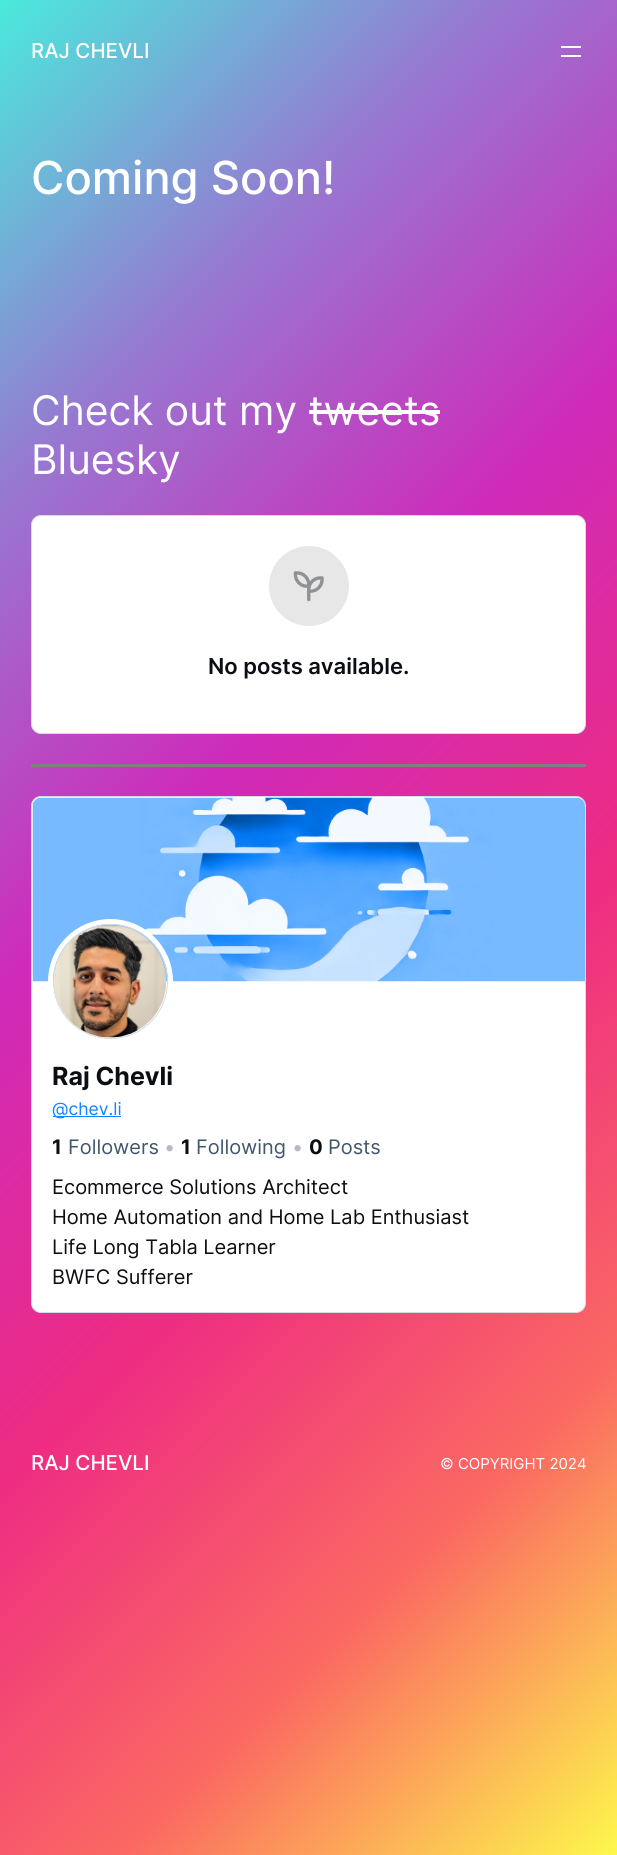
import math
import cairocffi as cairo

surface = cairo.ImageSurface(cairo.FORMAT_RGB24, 617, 1855)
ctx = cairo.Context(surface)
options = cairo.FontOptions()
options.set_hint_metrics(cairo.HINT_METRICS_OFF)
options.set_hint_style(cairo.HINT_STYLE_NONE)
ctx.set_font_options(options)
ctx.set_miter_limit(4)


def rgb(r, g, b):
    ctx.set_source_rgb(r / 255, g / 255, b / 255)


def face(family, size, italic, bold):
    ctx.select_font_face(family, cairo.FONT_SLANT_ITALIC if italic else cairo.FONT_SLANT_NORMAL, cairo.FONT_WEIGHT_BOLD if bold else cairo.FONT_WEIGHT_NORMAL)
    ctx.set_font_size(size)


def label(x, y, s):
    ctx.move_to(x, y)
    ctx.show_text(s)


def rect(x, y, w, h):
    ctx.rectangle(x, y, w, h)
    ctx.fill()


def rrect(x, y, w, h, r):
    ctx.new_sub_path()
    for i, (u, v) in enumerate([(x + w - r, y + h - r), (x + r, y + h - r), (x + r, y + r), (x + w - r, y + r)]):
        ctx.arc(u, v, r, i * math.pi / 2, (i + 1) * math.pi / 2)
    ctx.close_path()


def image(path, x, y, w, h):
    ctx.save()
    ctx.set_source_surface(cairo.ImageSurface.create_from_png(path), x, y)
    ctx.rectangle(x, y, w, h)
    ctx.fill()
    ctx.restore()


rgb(255, 255, 255)
ctx.paint()
gradient = cairo.LinearGradient(-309, 309, 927, 1546)
gradient.add_color_stop_rgba(0, 0.29, 0.918, 0.863, 1)
gradient.add_color_stop_rgba(0.2, 0.592, 0.471, 0.82, 1)
gradient.add_color_stop_rgba(0.4, 0.812, 0.165, 0.729, 1)
gradient.add_color_stop_rgba(0.6, 0.933, 0.173, 0.51, 1)
gradient.add_color_stop_rgba(0.8, 0.984, 0.412, 0.384, 1)
gradient.add_color_stop_rgba(1, 0.996, 0.973, 0.298, 1)
ctx.set_source(gradient)
rect(0, 0, 617, 1855)
face('Inter Medium', 20.5, 0, 0)
rgb(255, 255, 255)
label(31, 58, 'RAJ CHEVLI')
rect(561, 46, 20, 2)
rect(561, 55, 20, 2)
face('Inter Medium', 45.5, 0, 0)
label(31, 194, 'Coming Soon!')
face('Inter', 40.75, 0, 0)
label(31, 425, 'Check out my tweets')
rect(309, 410, 131, 4)
label(31, 474, 'Bluesky')
rrect(31.5, 515.5, 554, 218, 9.5)
ctx.fill_preserve()
rgb(212, 219, 226)
ctx.set_line_width(1)
ctx.stroke()
rgb(231, 231, 232)
ctx.arc(309, 586, 40, 0, 2 * math.pi)
ctx.fill()
image('image0.png', 293, 571, 31, 31)
face('Inter SemiBold', 22, 0, 0)
rgb(11, 15, 20)
label(208, 674, 'No posts available.')
rgb(128, 128, 128)
rect(31, 764, 555, 3)
rgb(255, 255, 255)
rrect(31.5, 796.5, 554, 516, 9.5)
ctx.fill_preserve()
rgb(212, 219, 226)
ctx.stroke()
image('image1.png', 32, 797, 553, 185)
ctx.arc(110.5, 981.5, 60, 0, 2 * math.pi)
rgb(255, 255, 255)
ctx.set_line_width(5)
ctx.stroke()
ctx.arc(110.5, 981.5, 57, 0, 2 * math.pi)
rgb(212, 219, 226)
ctx.set_line_width(1)
ctx.stroke()
image('image2.png', 54, 925, 113, 113)
face('Inter', 25, 0, 1)
rgb(11, 15, 20)
label(52, 1085, 'Raj Chevli')
rgb(16, 131, 254)
rect(53, 1116, 68, 1)
face('Inter', 17.5, 0, 0)
label(52, 1115, '@chev.li')
face('Inter', 20, 0, 1)
rgb(11, 15, 20)
label(52, 1154, '1')
face('Inter', 20, 0, 0)
rgb(66, 87, 108)
label(68, 1154, 'Followers')
rgb(179, 188, 196)
label(164, 1154, '•')
face('Inter', 20, 0, 1)
rgb(11, 15, 20)
label(181, 1154, '1')
face('Inter', 20, 0, 0)
rgb(66, 87, 108)
label(196, 1154, 'Following')
rgb(179, 188, 196)
label(292, 1154, '•')
face('Inter', 20, 0, 1)
rgb(11, 15, 20)
label(309, 1154, '0')
face('Inter', 20, 0, 0)
rgb(66, 87, 108)
label(328, 1154, 'Posts')
rgb(11, 15, 20)
label(52, 1194, 'Ecommerce Solutions Architect')
label(52, 1224, 'Home Automation and Home Lab Enthusiast')
label(52, 1254, 'Life Long Tabla Learner')
label(52, 1284, 'BWFC Sufferer')
face('Inter Medium', 20.5, 0, 0)
rgb(255, 255, 255)
label(31, 1470, 'RAJ CHEVLI')
face('Inter', 15, 0, 0)
label(440, 1469, '© COPYRIGHT 2024')
surface.write_to_png('render.png')
